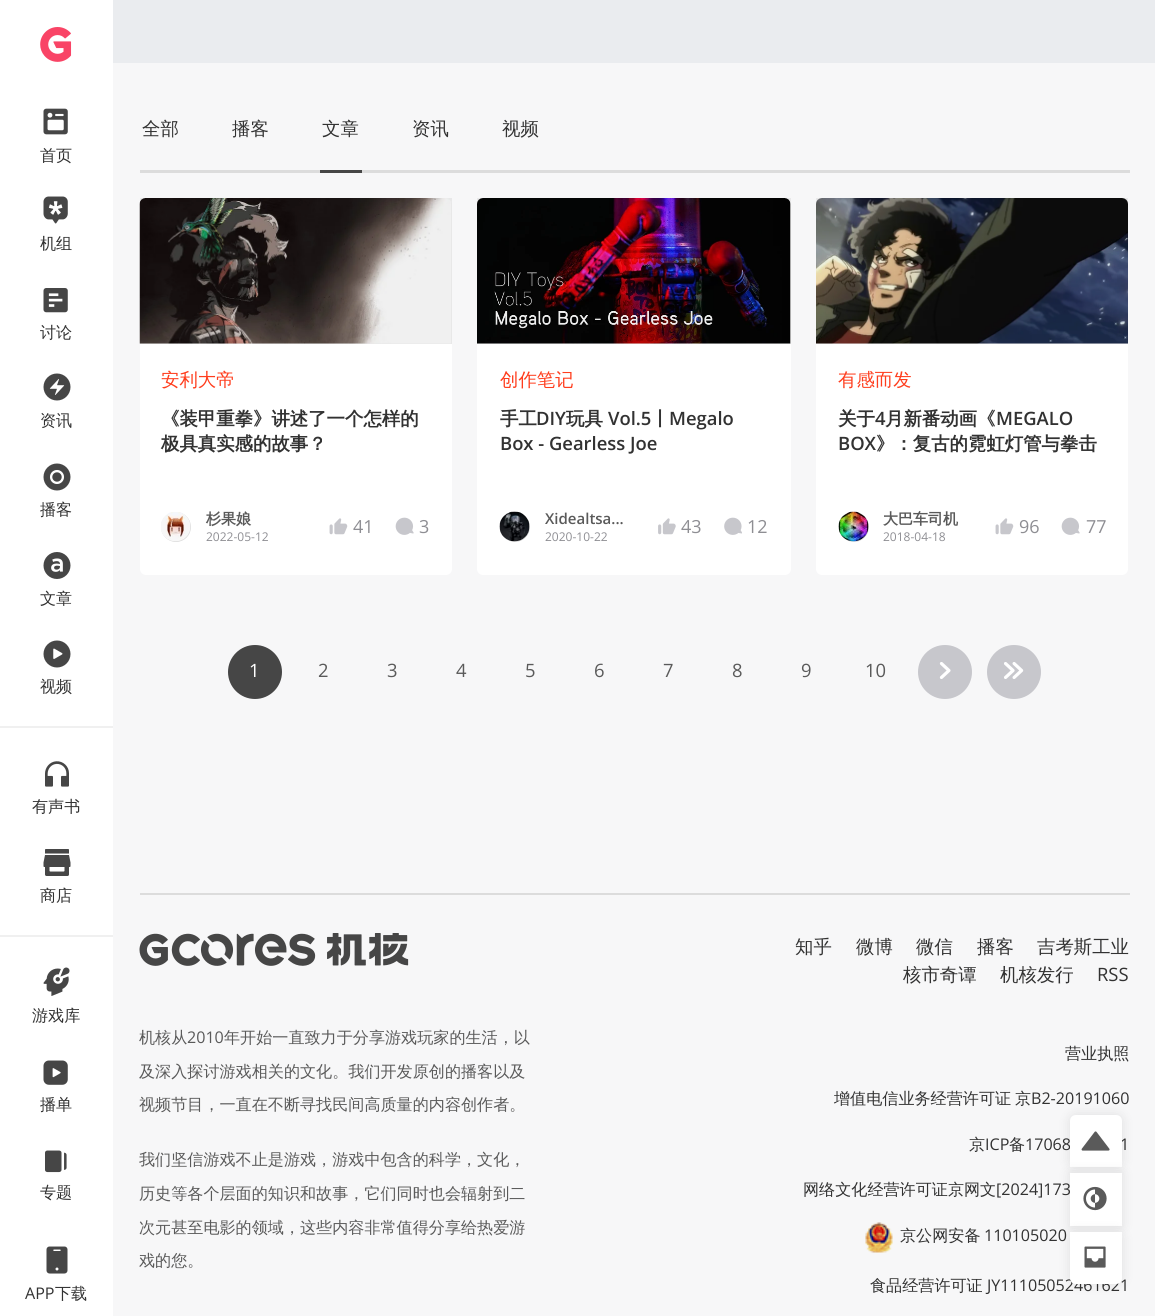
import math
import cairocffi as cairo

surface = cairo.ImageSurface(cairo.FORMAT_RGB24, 1155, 1316)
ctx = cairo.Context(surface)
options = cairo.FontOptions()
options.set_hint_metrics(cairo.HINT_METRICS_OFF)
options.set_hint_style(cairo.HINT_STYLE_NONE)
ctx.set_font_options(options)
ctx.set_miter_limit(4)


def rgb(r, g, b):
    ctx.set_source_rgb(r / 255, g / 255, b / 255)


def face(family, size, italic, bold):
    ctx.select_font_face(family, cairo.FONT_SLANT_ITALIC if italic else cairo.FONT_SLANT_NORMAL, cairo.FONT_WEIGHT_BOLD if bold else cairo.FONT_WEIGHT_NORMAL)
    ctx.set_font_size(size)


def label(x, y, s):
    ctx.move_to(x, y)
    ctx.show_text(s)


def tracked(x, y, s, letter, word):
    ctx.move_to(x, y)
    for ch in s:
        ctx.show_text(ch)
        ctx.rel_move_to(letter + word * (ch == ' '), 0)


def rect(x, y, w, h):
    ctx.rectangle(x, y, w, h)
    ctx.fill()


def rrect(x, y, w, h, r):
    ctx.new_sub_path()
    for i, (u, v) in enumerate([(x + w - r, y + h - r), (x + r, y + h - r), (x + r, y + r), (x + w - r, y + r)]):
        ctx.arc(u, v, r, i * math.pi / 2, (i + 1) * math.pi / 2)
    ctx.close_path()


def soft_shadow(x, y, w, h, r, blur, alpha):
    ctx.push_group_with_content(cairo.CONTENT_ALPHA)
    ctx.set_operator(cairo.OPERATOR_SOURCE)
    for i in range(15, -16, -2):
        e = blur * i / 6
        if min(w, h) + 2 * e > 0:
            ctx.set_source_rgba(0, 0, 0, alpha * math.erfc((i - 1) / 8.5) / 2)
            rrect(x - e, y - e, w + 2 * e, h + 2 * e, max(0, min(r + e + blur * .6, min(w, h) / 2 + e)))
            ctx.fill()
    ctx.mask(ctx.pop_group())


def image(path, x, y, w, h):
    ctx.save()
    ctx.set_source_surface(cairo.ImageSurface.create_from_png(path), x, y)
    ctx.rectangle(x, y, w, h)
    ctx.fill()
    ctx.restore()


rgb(247, 247, 248)
ctx.paint()
rgb(255, 255, 255)
rect(0, 0, 113, 1316)
image('image0.png', 40, 27, 32, 35)
image('image1.png', 43, 108, 25, 27)
face('WenQuanYi Zen Hei Medium', 16.1, 0, 0)
rgb(50, 50, 50)
label(40, 161, '首页')
image('image2.png', 43, 196, 25, 28)
label(40, 249, '机组')
image('image3.png', 43, 288, 25, 25)
label(40, 338, '讨论')
image('image4.png', 43, 373, 28, 28)
label(40, 426, '资讯')
image('image5.png', 43, 463, 28, 28)
label(40, 515, '播客')
image('image6.png', 43, 552, 28, 27)
label(40, 604, '文章')
image('image7.png', 43, 640, 28, 28)
label(40, 692, '视频')
rgb(240, 240, 240)
rect(0, 726, 113, 2)
image('image8.png', 45, 761, 24, 26)
rgb(50, 50, 50)
label(32, 812, '有声书')
image('image9.png', 43, 849, 28, 27)
label(40, 901, '商店')
rgb(240, 240, 240)
rect(0, 935, 113, 2)
image('image10.png', 43, 967, 27, 29)
rgb(50, 50, 50)
label(32, 1021, '游戏库')
image('image11.png', 43, 1060, 25, 25)
label(40, 1110, '播单')
image('image12.png', 45, 1150, 22, 23)
label(40, 1198, '专题')
image('image13.png', 46, 1246, 22, 28)
face('Open Sans', 16.1, 0, 0)
label(25, 1299, 'APP')
face('WenQuanYi Zen Hei Medium', 16.1, 0, 0)
label(55, 1299, '下载')
rgb(234, 236, 239)
rect(113, 0, 1042, 63)
face('WenQuanYi Zen Hei Medium', 18.4, 0, 0)
rgb(50, 50, 50)
label(142, 135, '全部')
label(232, 135, '播客')
rgb(220, 220, 220)
rect(140, 170, 990, 3)
rgb(70, 70, 70)
rect(320, 170, 42, 3)
rgb(50, 50, 50)
label(322, 135, '文章')
label(412, 135, '资讯')
label(502, 135, '视频')
rgb(255, 255, 255)
rrect(140, 198, 312, 377, 6)
ctx.fill()
rgb(246, 246, 246)
ctx.new_path()
ctx.move_to(146, 198)
ctx.line_to(446, 198)
ctx.curve_to(449.5, 198, 452, 200.5, 452, 204)
ctx.line_to(452, 344)
ctx.line_to(140, 344)
ctx.line_to(140, 204)
ctx.curve_to(140, 200.5, 142.5, 198, 146, 198)
ctx.close_path()
ctx.fill()
image('image14.png', 139, 198, 312, 146)
ctx.set_source_rgba(0, 0, 0, 0.06)
rect(140, 198, 312, 146)
rgb(255, 61, 29)
label(161, 386, '安利大帝')
face('WenQuanYi Zen Hei', 18.4, 0, 1)
rgb(50, 50, 50)
label(161, 425, '《装甲重拳》讲述了一个怎样的')
label(161, 450, '极具真实感的故事？')
rgb(220, 220, 220)
ctx.new_path()
ctx.arc(176, 527, 15, 0, 2 * math.pi)
ctx.fill()
image('image15.png', 161, 512, 30, 30)
face('WenQuanYi Zen Hei', 15, 0, 1)
rgb(90, 90, 90)
label(206, 524, '杉果娘')
face('Open Sans', 12, 0, 0)
rgb(142, 142, 147)
label(206, 541, '2022-05-12')
image('image16.png', 329, 518, 19, 17)
face('Open Sans', 18, 0, 0)
label(353, 533, '41')
image('image17.png', 395, 517, 19, 18)
label(419, 533, '3')
rgb(255, 255, 255)
rrect(477, 198, 314, 377, 6)
ctx.fill()
rgb(246, 246, 246)
ctx.new_path()
ctx.move_to(483, 198)
ctx.line_to(785, 198)
ctx.curve_to(788.5, 198, 791, 200.5, 791, 204)
ctx.line_to(791, 344)
ctx.line_to(477, 344)
ctx.line_to(477, 204)
ctx.curve_to(477, 200.5, 479.5, 198, 483, 198)
ctx.close_path()
ctx.fill()
image('image18.png', 477, 198, 314, 146)
ctx.set_source_rgba(0, 0, 0, 0.06)
rect(477, 198, 314, 146)
face('WenQuanYi Zen Hei Medium', 18.4, 0, 0)
rgb(255, 61, 29)
label(500, 386, '创作笔记')
face('WenQuanYi Zen Hei', 18.4, 0, 1)
rgb(50, 50, 50)
label(500, 425, '手工')
face('Open Sans SemiBold', 18.4, 0, 0)
label(536, 425, 'DIY')
face('WenQuanYi Zen Hei', 18.4, 0, 1)
label(566, 425, '玩具')
face('Open Sans SemiBold', 18.4, 0, 0)
label(608, 425, 'Vol.5')
face('WenQuanYi Zen Hei', 18.4, 0, 1)
label(651, 425, '丨')
face('Open Sans SemiBold', 18.4, 0, 0)
label(669, 425, 'Megalo')
label(500, 450, 'Box - Gearless Joe')
rgb(220, 220, 220)
ctx.new_path()
ctx.arc(515, 527, 15, 0, 2 * math.pi)
ctx.fill()
image('image19.png', 499, 511, 31, 31)
face('Open Sans SemiBold', 15, 0, 0)
rgb(90, 90, 90)
label(545, 524, 'Xidealtsa...')
face('Open Sans', 12, 0, 0)
rgb(142, 142, 147)
label(545, 541, '2020-10-22')
image('image20.png', 658, 518, 18, 17)
face('Open Sans', 18, 0, 0)
label(681, 533, '43')
image('image21.png', 724, 517, 18, 18)
label(747, 533, '12')
rgb(255, 255, 255)
rrect(816, 198, 312, 377, 6)
ctx.fill()
rgb(246, 246, 246)
ctx.new_path()
ctx.move_to(822, 198)
ctx.line_to(1122, 198)
ctx.curve_to(1125.5, 198, 1128, 200.5, 1128, 204)
ctx.line_to(1128, 344)
ctx.line_to(816, 344)
ctx.line_to(816, 204)
ctx.curve_to(816, 200.5, 818.5, 198, 822, 198)
ctx.close_path()
ctx.fill()
image('image22.png', 816, 198, 312, 146)
ctx.set_source_rgba(0, 0, 0, 0.06)
rect(816, 198, 312, 146)
face('WenQuanYi Zen Hei Medium', 18.4, 0, 0)
rgb(255, 61, 29)
label(838, 386, '有感而发')
face('WenQuanYi Zen Hei', 18.4, 0, 1)
rgb(50, 50, 50)
label(838, 425, '关于')
face('Open Sans SemiBold', 18.4, 0, 0)
label(875, 425, '4')
face('WenQuanYi Zen Hei', 18.4, 0, 1)
label(885, 425, '月新番动画《')
face('Open Sans SemiBold', 18.4, 0, 0)
label(996, 425, 'MEGALO')
label(838, 450, 'BOX')
face('WenQuanYi Zen Hei', 18.4, 0, 1)
label(876, 450, '》：复古的霓虹灯管与拳击')
rgb(220, 220, 220)
ctx.new_path()
ctx.arc(854, 527, 15, 0, 2 * math.pi)
ctx.fill()
image('image23.png', 838, 511, 31, 31)
face('WenQuanYi Zen Hei', 15, 0, 1)
rgb(90, 90, 90)
label(883, 524, '大巴车司机')
face('Open Sans', 12, 0, 0)
rgb(142, 142, 147)
label(883, 541, '2018-04-18')
image('image16.png', 995, 518, 19, 17)
face('Open Sans', 18, 0, 0)
label(1019, 533, '96')
image('image17.png', 1061, 517, 19, 18)
label(1086, 533, '77')
rgb(70, 70, 70)
ctx.new_path()
ctx.arc(255, 672, 27, 0, 2 * math.pi)
ctx.fill()
face('Open Sans', 18.4, 0, 0)
rgb(255, 255, 255)
label(249, 677, '1')
rgb(90, 90, 90)
label(318, 677, '2')
label(387, 677, '3')
label(456, 677, '4')
label(525, 677, '5')
label(594, 677, '6')
label(663, 677, '7')
label(732, 677, '8')
label(801, 677, '9')
label(865, 677, '10')
rgb(199, 199, 204)
ctx.new_path()
ctx.arc(945, 672, 27, 0, 2 * math.pi)
ctx.fill()
image('image24.png', 939, 662, 12, 17)
ctx.arc(1014, 672, 27, 0, 2 * math.pi)
ctx.fill()
image('image25.png', 1004, 662, 20, 17)
rgb(220, 220, 220)
rect(140, 893, 990, 2)
image('image26.png', 139, 933, 270, 33)
face('WenQuanYi Zen Hei Medium', 16.1, 0, 0)
rgb(90, 90, 90)
label(139, 1043, '机核从')
face('Open Sans', 16.1, 0, 0)
label(187, 1043, '2010')
face('WenQuanYi Zen Hei Medium', 16.1, 0, 0)
label(224, 1043, '年开始一直致力于分享游戏玩家的生活，以')
label(139, 1077, '及深入探讨游戏相关的文化。我们开发原创的播客以及')
label(139, 1110, '视频节目，一直在不断寻找民间高质量的内容创作者。')
label(139, 1165, '我们坚信游戏不止是游戏，游戏中包含的科学，文化，')
label(139, 1199, '历史等各个层面的知识和故事，它们同时也会辐射到二')
label(139, 1233, '次元甚至电影的领域，这些内容非常值得分享给热爱游')
label(139, 1266, '戏的您。')
face('WenQuanYi Zen Hei Medium', 18.4, 0, 0)
rgb(50, 50, 50)
label(795, 953, '知乎')
label(856, 953, '微博')
label(916, 953, '微信')
label(977, 953, '播客')
label(1037, 953, '吉考斯工业')
label(903, 981, '核市奇谭')
label(1000, 981, '机核发行')
face('Open Sans', 18.4, 0, 0)
label(1097, 981, 'RSS')
face('WenQuanYi Zen Hei Medium', 16.1, 0, 0)
label(1065, 1059, '营业执照')
tracked(834, 1104, '增值电信业务经营许可证 京', 0, -1)
face('Open Sans', 16.1, 0, 0)
label(1031, 1104, 'B2-20191060')
face('WenQuanYi Zen Hei Medium', 16.1, 0, 0)
label(969, 1150, '京')
face('Open Sans', 16.1, 0, 0)
label(985, 1150, 'ICP')
face('WenQuanYi Zen Hei Medium', 16.1, 0, 0)
label(1009, 1150, '备')
face('Open Sans', 16.1, 0, 0)
label(1025, 1150, '17068')
label(1120, 1150, '1')
face('WenQuanYi Zen Hei Medium', 16.1, 0, 0)
label(803, 1195, '网络文化经营许可证京网文')
face('Open Sans', 16.1, 0, 0)
label(996, 1195, '[2024]173')
image('image27.png', 865, 1222, 28, 31)
face('WenQuanYi Zen Hei Medium', 16.1, 0, 0)
label(900, 1241, '京公网安备')
face('Open Sans', 16.1, 0, 0)
label(984, 1241, '110105020')
face('WenQuanYi Zen Hei Medium', 16.1, 0, 0)
label(870, 1291, '食品经营许可证')
face('Open Sans', 16.1, 0, 0)
label(987, 1291, 'JY11105052461621')
rgb(0, 0, 0)
soft_shadow(1070, 1115, 52, 52, 6, 6, 0.1)
rgb(255, 255, 255)
ctx.new_path()
ctx.move_to(1076, 1115)
ctx.line_to(1116, 1115)
ctx.curve_to(1119.5, 1115, 1122, 1117.5, 1122, 1121)
ctx.line_to(1122, 1167)
ctx.line_to(1070, 1167)
ctx.line_to(1070, 1121)
ctx.curve_to(1070, 1117.5, 1072.5, 1115, 1076, 1115)
ctx.close_path()
ctx.fill()
image('image28.png', 1081, 1131, 29, 20)
rgb(0, 0, 0)
soft_shadow(1070, 1173, 52, 53, 0, 6, 0.1)
rgb(255, 255, 255)
rect(1070, 1173, 52, 53)
image('image29.png', 1083, 1186, 24, 25)
rgb(0, 0, 0)
soft_shadow(1070, 1232, 52, 52, 6, 6, 0.1)
rgb(255, 255, 255)
ctx.new_path()
ctx.move_to(1070, 1232)
ctx.line_to(1122, 1232)
ctx.line_to(1122, 1278)
ctx.curve_to(1122, 1281.5, 1119.5, 1284, 1116, 1284)
ctx.line_to(1076, 1284)
ctx.curve_to(1072.5, 1284, 1070, 1281.5, 1070, 1278)
ctx.close_path()
ctx.fill()
image('image30.png', 1084, 1246, 22, 22)
surface.write_to_png('render.png')
